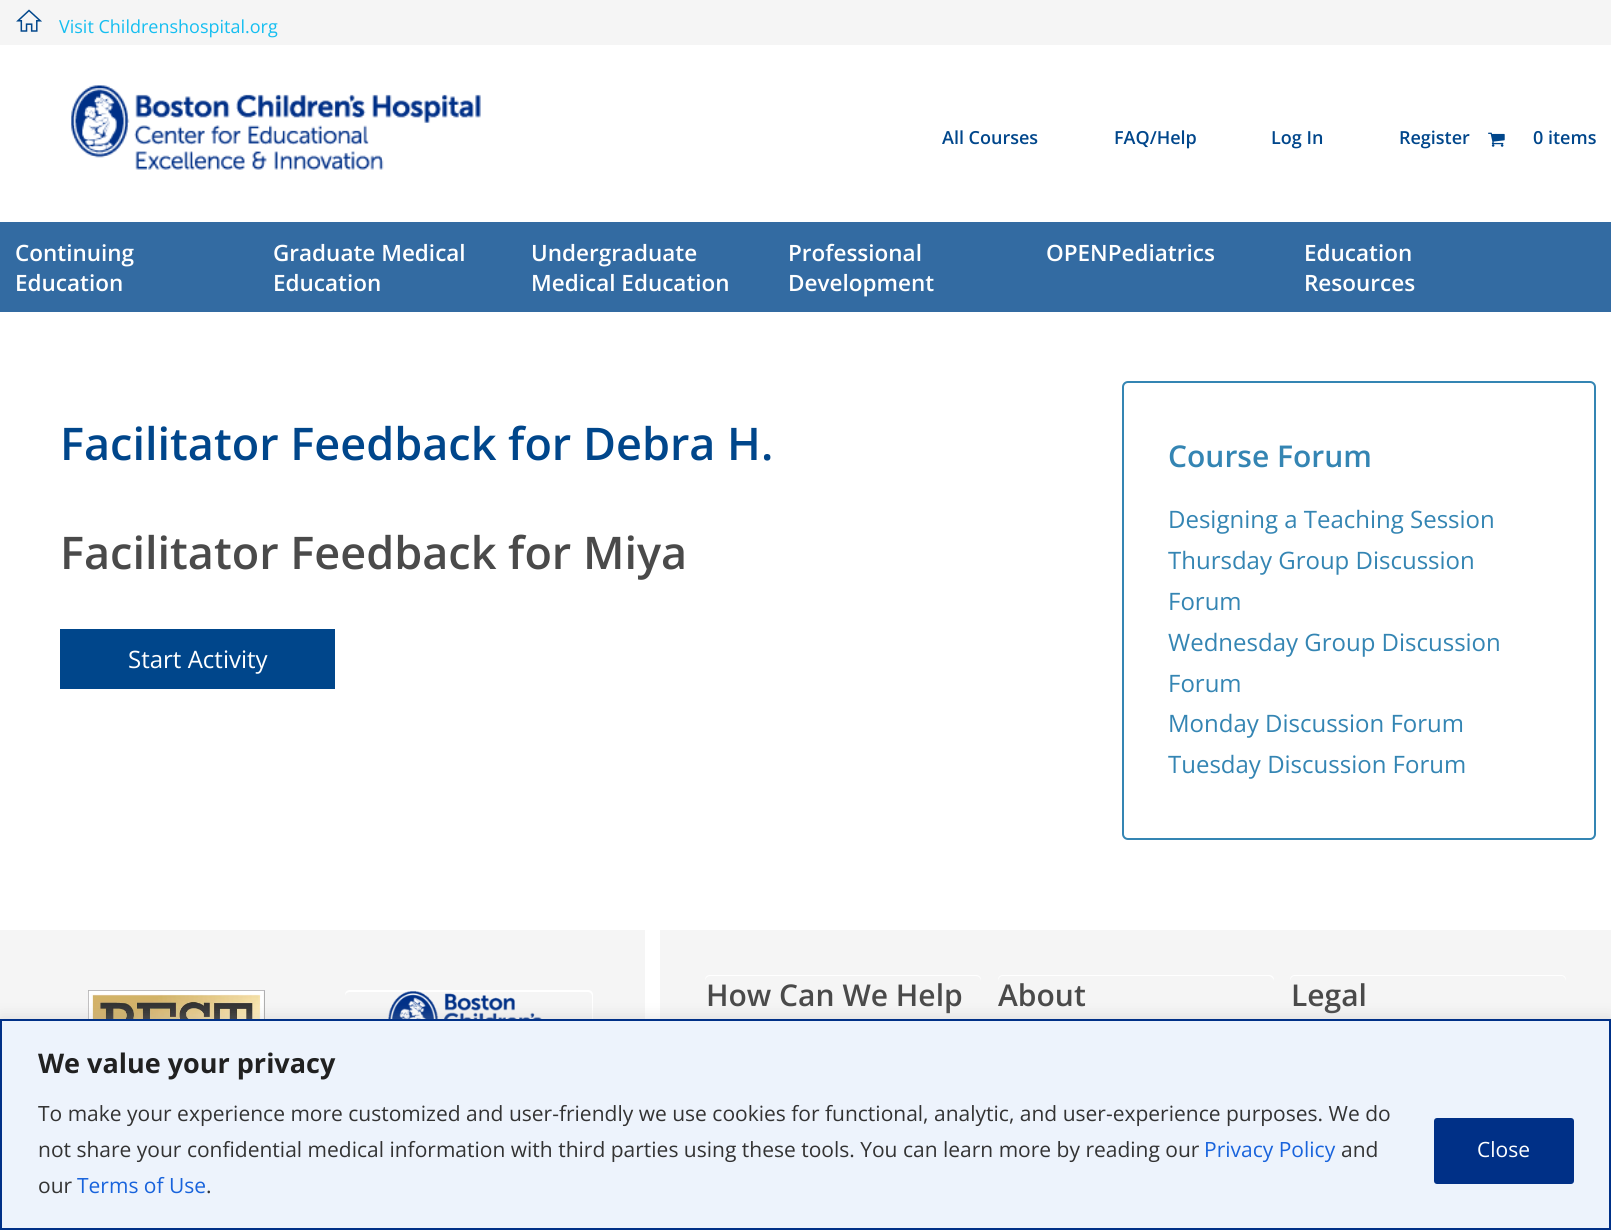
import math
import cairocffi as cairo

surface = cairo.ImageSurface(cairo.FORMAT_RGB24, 1611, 1230)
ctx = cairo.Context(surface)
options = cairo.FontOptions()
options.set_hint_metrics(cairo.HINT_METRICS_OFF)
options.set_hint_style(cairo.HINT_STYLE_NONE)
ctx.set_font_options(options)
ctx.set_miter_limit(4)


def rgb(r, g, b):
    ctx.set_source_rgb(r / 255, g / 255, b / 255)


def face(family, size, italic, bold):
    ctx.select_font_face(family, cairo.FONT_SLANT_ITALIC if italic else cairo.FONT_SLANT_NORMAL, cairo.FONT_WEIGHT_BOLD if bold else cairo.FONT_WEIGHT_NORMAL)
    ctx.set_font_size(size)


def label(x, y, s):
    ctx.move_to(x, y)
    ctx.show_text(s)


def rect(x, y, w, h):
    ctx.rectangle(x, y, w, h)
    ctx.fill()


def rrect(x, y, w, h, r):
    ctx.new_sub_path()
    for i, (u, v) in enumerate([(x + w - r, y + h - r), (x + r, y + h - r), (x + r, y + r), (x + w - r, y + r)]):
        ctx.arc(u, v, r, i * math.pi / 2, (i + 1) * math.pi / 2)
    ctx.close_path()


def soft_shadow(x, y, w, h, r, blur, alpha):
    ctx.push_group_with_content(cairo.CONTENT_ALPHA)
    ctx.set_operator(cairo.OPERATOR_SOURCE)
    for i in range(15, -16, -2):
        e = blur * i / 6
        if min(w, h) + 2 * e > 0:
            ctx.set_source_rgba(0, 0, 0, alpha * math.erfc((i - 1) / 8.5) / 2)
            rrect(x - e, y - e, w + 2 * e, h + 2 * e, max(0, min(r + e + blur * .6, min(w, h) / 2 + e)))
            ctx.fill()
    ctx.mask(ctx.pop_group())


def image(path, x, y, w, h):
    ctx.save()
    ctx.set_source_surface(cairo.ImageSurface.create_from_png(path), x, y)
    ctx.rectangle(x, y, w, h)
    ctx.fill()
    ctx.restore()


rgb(255, 255, 255)
ctx.paint()
rgb(245, 245, 245)
rect(0, 0, 1611, 45)
image('image0.png', 16, 9, 26, 23)
face('Open Sans', 18, 0, 0)
rgb(21, 190, 240)
label(59, 33, 'Visit Childrenshospital.org')
image('image1.png', 71, 85, 410, 85)
rgb(51, 107, 162)
rect(0, 222, 1611, 90)
face('Open Sans SemiBold', 18, 0, 0)
rgb(0, 70, 139)
label(942, 144, 'All Courses')
label(1114, 144, 'FAQ/Help')
label(1271, 144, 'Log In')
label(1399, 144, 'Register')
image('image2.png', 1488, 132, 17, 15)
label(1533, 144, '0 items')
face('Open Sans SemiBold', 22.5, 0, 0)
rgb(255, 255, 255)
label(15, 261, 'Continuing')
label(15, 291, 'Education')
label(273, 261, 'Graduate Medical')
label(273, 291, 'Education')
label(531, 261, 'Undergraduate')
label(531, 291, 'Medical Education')
label(788, 261, 'Professional')
label(788, 291, 'Development')
label(1046, 261, 'OPENPediatrics')
label(1304, 261, 'Education')
label(1304, 291, 'Resources')
face('Open Sans SemiBold', 45, 0, 0)
rgb(0, 70, 139)
label(60, 460, 'Facilitator Feedback for Debra H.')
rgb(74, 74, 74)
label(60, 569, 'Facilitator Feedback for Miya')
rgb(0, 70, 139)
rect(60, 629, 275, 60)
face('Open Sans', 24, 0, 0)
rgb(255, 255, 255)
label(128, 668, 'Start Activity')
rrect(1123, 382, 472, 457, 5)
rgb(52, 133, 179)
ctx.stroke()
face('Open Sans SemiBold', 30, 0, 0)
label(1168, 467, 'Course Forum')
face('Open Sans', 24, 0, 0)
label(1168, 528, 'Designing a Teaching Session')
label(1168, 569, 'Thursday Group Discussion')
label(1168, 610, 'Forum')
label(1168, 651, 'Wednesday Group Discussion')
label(1168, 692, 'Forum')
label(1168, 732, 'Monday Discussion Forum')
label(1168, 773, 'Tuesday Discussion Forum')
rgb(245, 245, 245)
rect(0, 930, 645, 89)
image('image3.png', 88, 990, 177, 29)
rgb(255, 255, 255)
ctx.new_path()
ctx.move_to(350, 992)
ctx.line_to(588, 992)
ctx.curve_to(590, 992, 592, 994, 592, 996)
ctx.line_to(592, 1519)
ctx.curve_to(593, 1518, 593, 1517, 593, 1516)
ctx.line_to(593, 995)
ctx.curve_to(593, 992, 591, 990, 588, 990)
ctx.line_to(350, 990)
ctx.curve_to(347, 990, 345, 992, 345, 995)
ctx.line_to(345, 996)
ctx.curve_to(345, 994, 347, 992, 350, 992)
ctx.close_path()
ctx.fill()
image('image4.png', 388, 990, 154, 29)
rgb(245, 245, 245)
rect(660, 930, 951, 89)
rgb(255, 255, 255)
ctx.new_path()
ctx.move_to(710, 976)
ctx.line_to(976, 976)
ctx.curve_to(979, 976, 981, 979, 981, 981)
ctx.line_to(981, 980)
ctx.curve_to(981, 977, 979, 975, 976, 975)
ctx.line_to(710, 975)
ctx.curve_to(707, 975, 705, 977, 705, 980)
ctx.line_to(705, 981)
ctx.curve_to(705, 979, 707, 976, 710, 976)
ctx.close_path()
ctx.fill()
face('Open Sans SemiBold', 30, 0, 0)
rgb(74, 74, 74)
label(706, 1006, 'How Can We Help')
rgb(255, 255, 255)
ctx.new_path()
ctx.move_to(1002, 976)
ctx.line_to(1269, 976)
ctx.curve_to(1271, 976, 1274, 979, 1274, 981)
ctx.line_to(1274, 980)
ctx.curve_to(1274, 977, 1272, 975, 1269, 975)
ctx.line_to(1003, 975)
ctx.curve_to(1000, 975, 998, 977, 998, 980)
ctx.line_to(998, 981)
ctx.curve_to(998, 979, 1000, 976, 1002, 976)
ctx.close_path()
ctx.fill()
rgb(74, 74, 74)
label(998, 1006, 'About')
rgb(255, 255, 255)
ctx.new_path()
ctx.move_to(1294, 976)
ctx.line_to(1562, 976)
ctx.curve_to(1564, 976, 1566, 979, 1566, 981)
ctx.line_to(1566, 980)
ctx.curve_to(1566, 977, 1564, 975, 1561, 975)
ctx.line_to(1295, 975)
ctx.curve_to(1292, 975, 1290, 977, 1290, 980)
ctx.line_to(1290, 981)
ctx.curve_to(1290, 979, 1292, 976, 1294, 976)
ctx.close_path()
ctx.fill()
rgb(74, 74, 74)
label(1291, 1006, 'Legal')
rgb(172, 171, 171)
soft_shadow(0, 1017, 1611, 212, 0, 7.5, 0.3)
rgb(237, 243, 252)
ctx.rectangle(1, 1020, 1609, 209)
ctx.fill_preserve()
rgb(0, 48, 135)
ctx.stroke()
face('Open Sans', 27, 0, 1)
rgb(33, 33, 33)
label(38, 1073, 'We value your privacy')
face('Open Sans', 21, 0, 0)
rgb(51, 51, 51)
label(38, 1121, 'To make your experience more customized and user-friendly we use cookies for functional, analytic, and user-experience purposes. We do')
label(38, 1157, 'not share your confidential medical information with third parties using these tools. You can learn more by reading our')
rgb(24, 99, 220)
label(1204, 1157, 'Privacy Policy')
rgb(51, 51, 51)
label(1341, 1157, 'and')
label(38, 1193, 'our')
rgb(24, 99, 220)
label(77, 1193, 'Terms of Use')
rgb(51, 51, 51)
label(206, 1193, '.')
rgb(0, 48, 135)
rrect(1435.5, 1119.5, 137, 63, 1.5)
ctx.fill_preserve()
ctx.set_line_width(3)
ctx.stroke()
rgb(255, 255, 255)
label(1477, 1157, 'Close')
surface.write_to_png('render.png')
